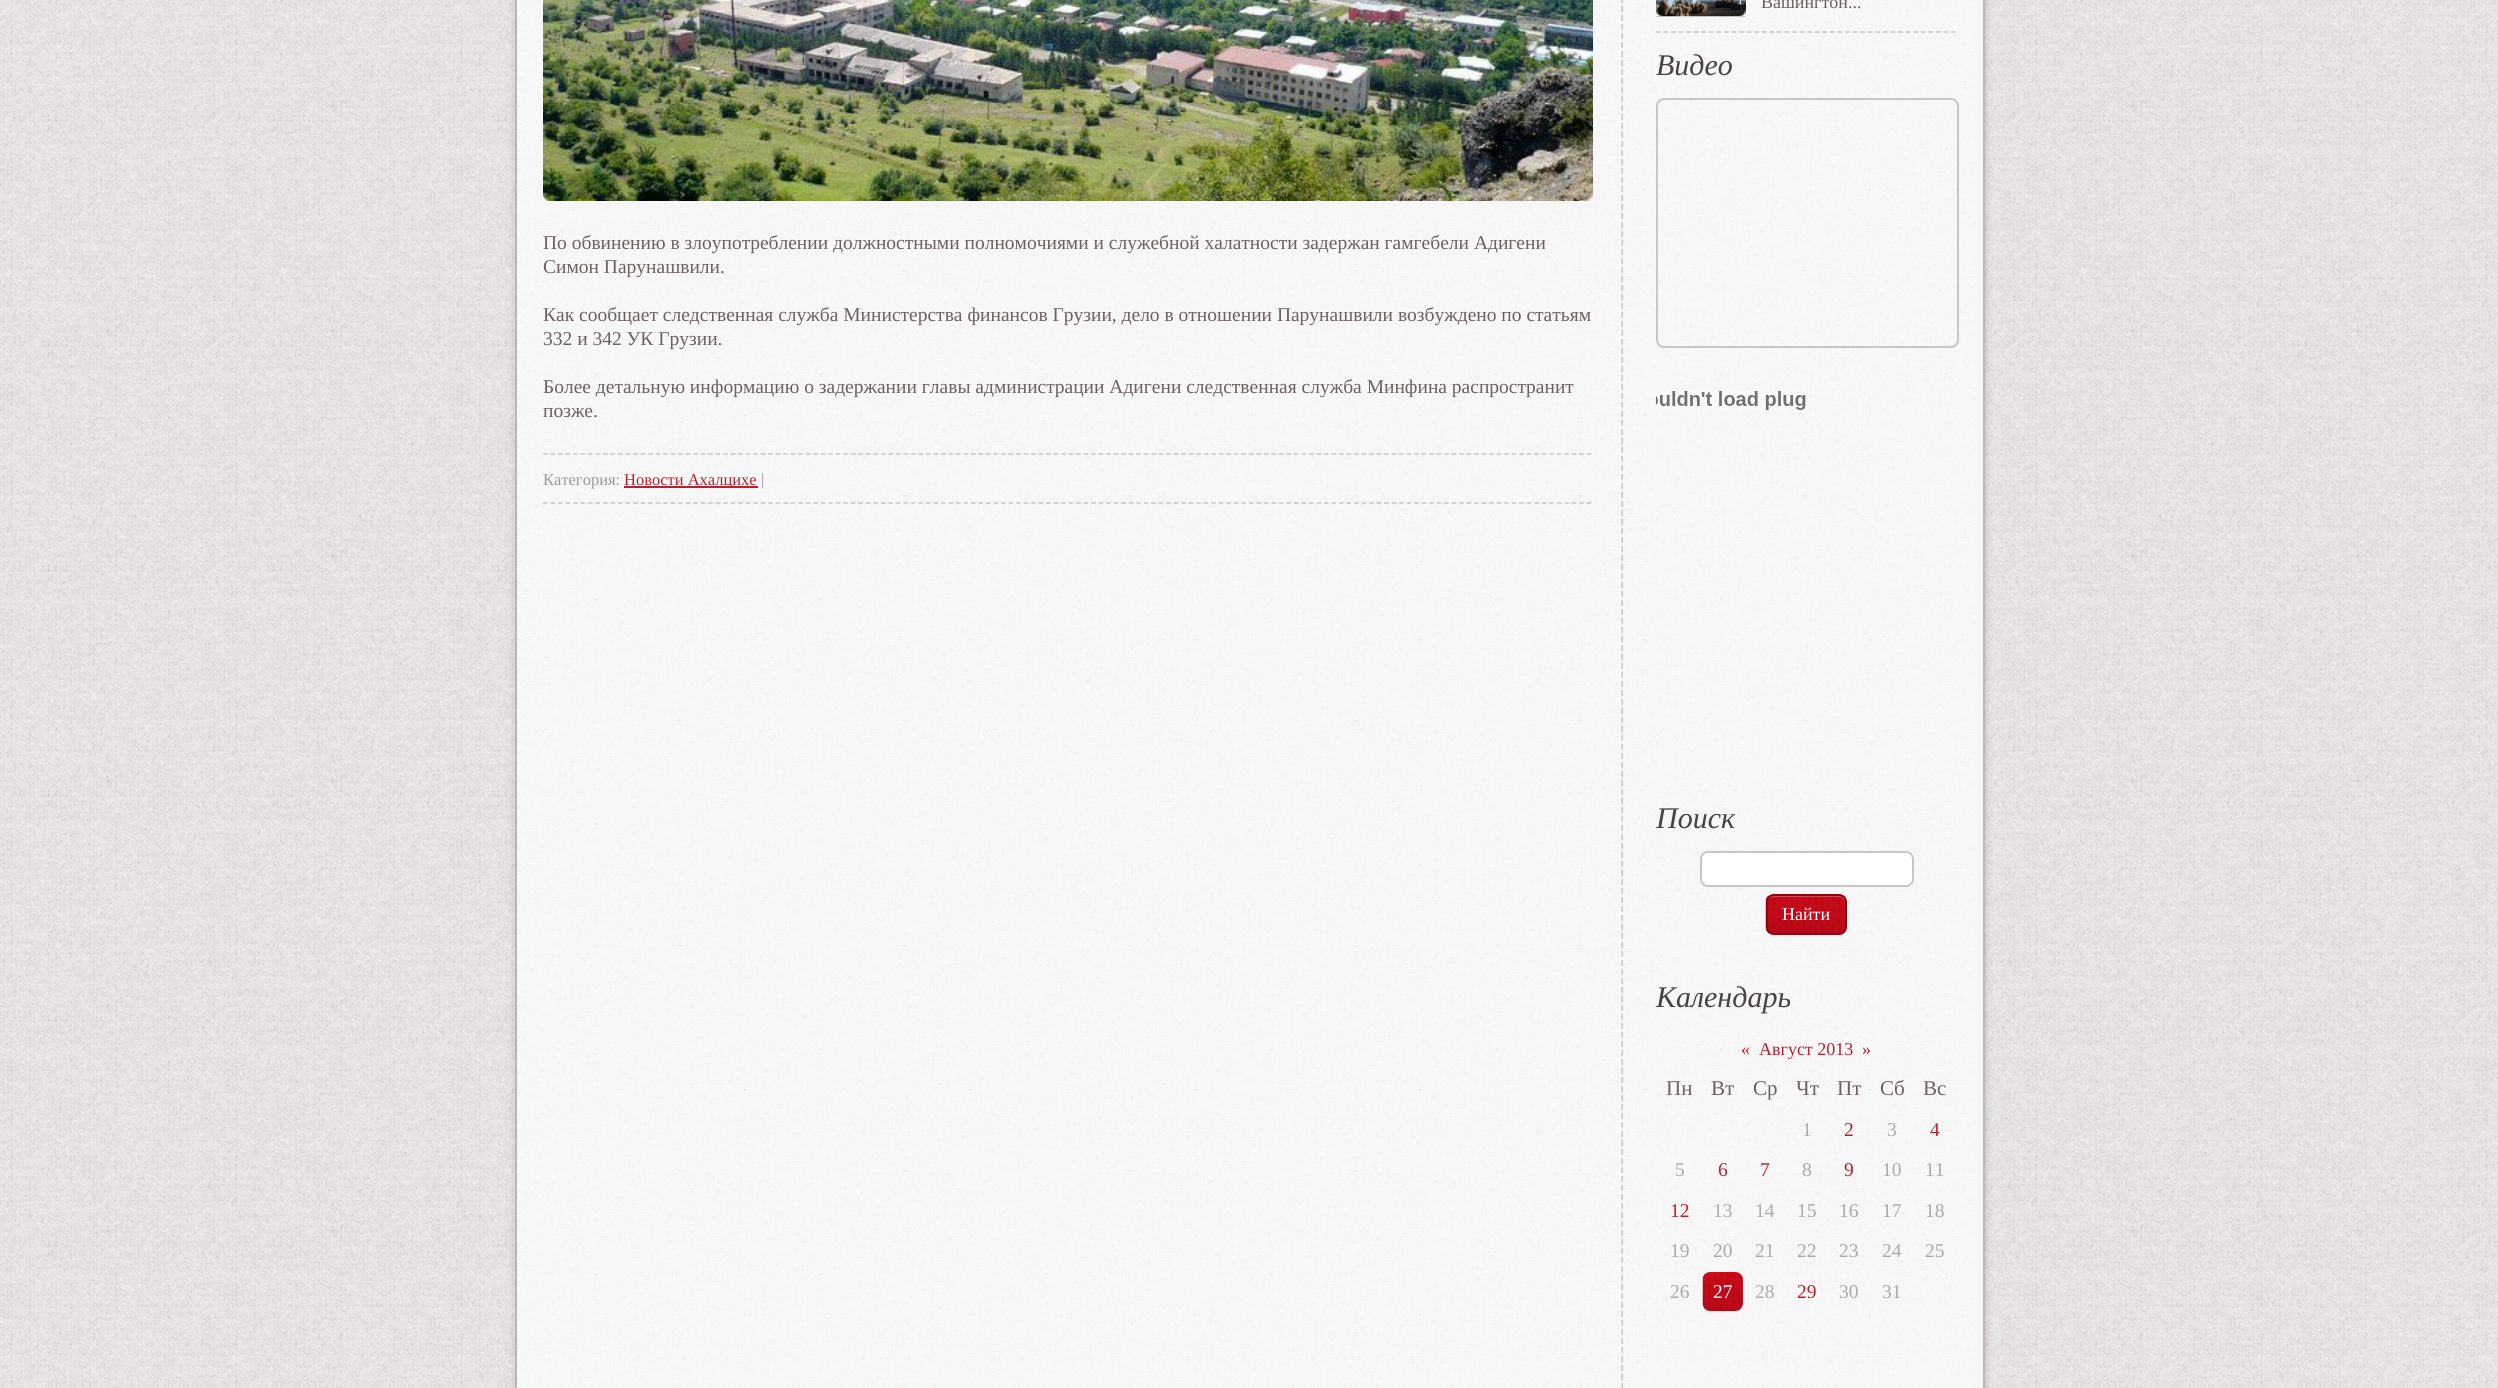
import math
import cairocffi as cairo

surface = cairo.ImageSurface(cairo.FORMAT_RGB24, 2498, 1388)
ctx = cairo.Context(surface)
options = cairo.FontOptions()
options.set_hint_metrics(cairo.HINT_METRICS_OFF)
options.set_hint_style(cairo.HINT_STYLE_NONE)
ctx.set_font_options(options)
ctx.set_miter_limit(4)


def rgb(r, g, b):
    ctx.set_source_rgb(r / 255, g / 255, b / 255)


def face(family, size, italic, bold):
    ctx.select_font_face(family, cairo.FONT_SLANT_ITALIC if italic else cairo.FONT_SLANT_NORMAL, cairo.FONT_WEIGHT_BOLD if bold else cairo.FONT_WEIGHT_NORMAL)
    ctx.set_font_size(size)


def label(x, y, s):
    ctx.move_to(x, y)
    ctx.show_text(s)


def rect(x, y, w, h):
    ctx.rectangle(x, y, w, h)
    ctx.fill()


def rrect(x, y, w, h, r):
    ctx.new_sub_path()
    for i, (u, v) in enumerate([(x + w - r, y + h - r), (x + r, y + h - r), (x + r, y + r), (x + w - r, y + r)]):
        ctx.arc(u, v, r, i * math.pi / 2, (i + 1) * math.pi / 2)
    ctx.close_path()


def soft_shadow(x, y, w, h, r, blur, alpha):
    ctx.push_group_with_content(cairo.CONTENT_ALPHA)
    ctx.set_operator(cairo.OPERATOR_SOURCE)
    for i in range(15, -16, -2):
        e = blur * i / 6
        if min(w, h) + 2 * e > 0:
            ctx.set_source_rgba(0, 0, 0, alpha * math.erfc((i - 1) / 8.5) / 2)
            rrect(x - e, y - e, w + 2 * e, h + 2 * e, max(0, min(r + e + blur * .6, min(w, h) / 2 + e)))
            ctx.fill()
    ctx.mask(ctx.pop_group())


def image(path, x, y, w, h):
    ctx.save()
    ctx.set_source_surface(cairo.ImageSurface.create_from_png(path), x, y)
    ctx.rectangle(x, y, w, h)
    ctx.fill()
    ctx.restore()


rgb(255, 255, 255)
ctx.paint()
image('image0.png', 0, 0, 2498, 1388)
rgb(0, 0, 0)
soft_shadow(515, -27, 1470, 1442, 15, 4, 0.2)
rgb(245, 245, 245)
rect(1977, 0, 6, 1388)
image('image1.png', 514, 0, 1463, 1388)
ctx.rectangle(516, -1, 1468, 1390)
rgb(189, 180, 180)
ctx.stroke()
image('image2.png', 1621, 0, 2, 1388)
image('image3.png', 543, 0, 1050, 201)
image('image4.png', 543, 193, 7, 8)
image('image5.png', 1586, 194, 7, 7)
face('Liberation Serif', 19.5, 0, 0)
rgb(107, 97, 97)
label(543, 249, 'По обвинению в злоупотреблении должностными полномочиями и служебной халатности задержан гамгебели Адигени')
label(543, 273, 'Симон Парунашвили.')
label(543, 321, 'Как сообщает следственная служба Министерства финансов Грузии, дело в отношении Парунашвили возбуждено по статьям')
label(543, 345, '332 и 342 УК Грузии.')
label(543, 393, 'Более детальную информацию о задержании главы администрации Адигени следственная служба Минфина распространит')
label(543, 417, 'позже.')
ctx.new_path()
ctx.move_to(543, 454)
ctx.line_to(1593, 454)
rgb(198, 198, 198)
ctx.set_line_width(1.5)
ctx.set_dash([4.5, 3.01])
ctx.stroke()
ctx.new_path()
ctx.move_to(543, 503)
ctx.line_to(1593, 503)
ctx.stroke()
face('Liberation Serif', 16.5, 0, 0)
rgb(153, 153, 153)
label(543, 485, 'Категория:')
rgb(182, 33, 45)
rect(624, 486, 134, 2)
label(624, 485, 'Новости Ахалцихе')
rgb(153, 153, 153)
label(761, 485, '|')
ctx.new_path()
ctx.move_to(1656, 32)
ctx.line_to(1956, 32)
rgb(198, 198, 198)
ctx.set_dash([4.5, 3.07])
ctx.stroke()
image('image6.png', 1656, 0, 90, 17)
image('image7.png', 1656, 9, 7, 8)
image('image8.png', 1739, 9, 7, 8)
face('Liberation Serif', 18, 0, 0)
rgb(107, 97, 97)
label(1761, 8, 'Вашингтон...')
face('Liberation Serif', 30, 1, 0)
rgb(72, 66, 66)
label(1656, 75, 'Видео')
rrect(1657, 99, 301, 248, 7)
rgb(198, 198, 198)
ctx.set_line_width(2)
ctx.set_dash([])
ctx.stroke()
image('image9.png', 1656, 391, 150, 19)
rgb(72, 66, 66)
label(1656, 828, 'Поиск')
rgb(255, 255, 255)
rrect(1701, 852, 212, 34, 7)
ctx.fill_preserve()
rgb(198, 198, 198)
ctx.stroke()
image('image10.png', 1765, 894, 82, 41)
ctx.set_source_rgba(1, 1, 1, 0.25)
ctx.new_path()
ctx.move_to(1773, 897)
ctx.line_to(1839, 897)
ctx.curve_to(1842, 897, 1845, 900, 1845, 903)
ctx.curve_to(1845, 893, 1835, 896, 1828, 896)
ctx.line_to(1784, 896)
ctx.curve_to(1777, 896, 1767, 893, 1767, 903)
ctx.curve_to(1767, 900, 1770, 897, 1773, 897)
ctx.close_path()
ctx.fill()
rrect(1767, 895, 79, 39, 7)
rgb(144, 6, 16)
ctx.stroke()
face('Liberation Serif', 18, 0, 0)
rgb(255, 255, 255)
label(1782, 920, 'Найти')
face('Liberation Serif', 30, 1, 0)
rgb(72, 66, 66)
label(1656, 1007, 'Календарь')
face('Liberation Serif', 18, 0, 0)
rgb(182, 33, 45)
label(1741, 1055, '«')
label(1759, 1055, 'Август 2013')
label(1862, 1055, '»')
face('Liberation Serif', 21, 0, 0)
rgb(107, 97, 97)
label(1666, 1095, 'Пн')
label(1711, 1095, 'Вт')
label(1753, 1095, 'Ср')
label(1796, 1095, 'Чт')
label(1837, 1095, 'Пт')
label(1880, 1095, 'Сб')
label(1923, 1095, 'Вс')
face('Liberation Serif', 19.5, 0, 0)
rgb(170, 170, 170)
label(1802, 1136, '1')
rgb(182, 33, 45)
label(1844, 1136, '2')
rgb(170, 170, 170)
label(1887, 1136, '3')
rgb(182, 33, 45)
label(1930, 1136, '4')
rgb(170, 170, 170)
label(1675, 1176, '5')
rgb(182, 33, 45)
label(1718, 1176, '6')
label(1760, 1176, '7')
rgb(170, 170, 170)
label(1802, 1176, '8')
rgb(182, 33, 45)
label(1844, 1176, '9')
rgb(170, 170, 170)
label(1882, 1176, '10')
label(1925, 1176, '11')
rgb(182, 33, 45)
label(1670, 1217, '12')
rgb(170, 170, 170)
label(1713, 1217, '13')
label(1755, 1217, '14')
label(1797, 1217, '15')
label(1839, 1217, '16')
label(1882, 1217, '17')
label(1925, 1217, '18')
label(1670, 1257, '19')
label(1713, 1257, '20')
label(1755, 1257, '21')
label(1797, 1257, '22')
label(1839, 1257, '23')
label(1882, 1257, '24')
label(1925, 1257, '25')
label(1670, 1298, '26')
image('image11.png', 1702, 1272, 41, 39)
rgb(255, 255, 255)
label(1713, 1298, '27')
rgb(170, 170, 170)
label(1755, 1298, '28')
rgb(182, 33, 45)
label(1797, 1298, '29')
rgb(170, 170, 170)
label(1839, 1298, '30')
label(1882, 1298, '31')
surface.write_to_png('render.png')
